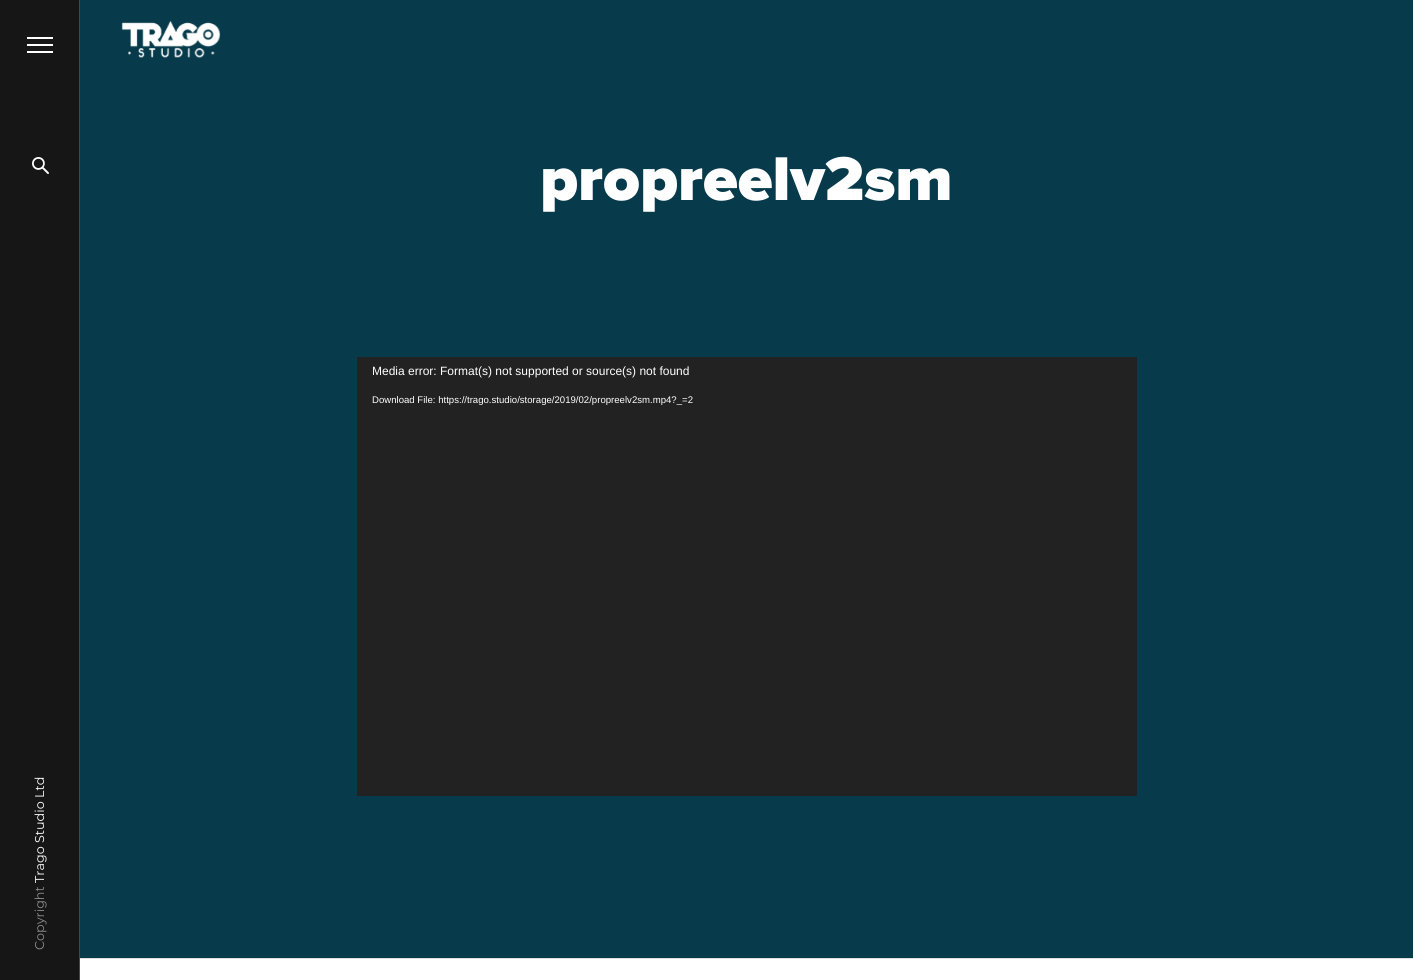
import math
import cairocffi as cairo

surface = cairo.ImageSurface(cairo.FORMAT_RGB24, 1413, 980)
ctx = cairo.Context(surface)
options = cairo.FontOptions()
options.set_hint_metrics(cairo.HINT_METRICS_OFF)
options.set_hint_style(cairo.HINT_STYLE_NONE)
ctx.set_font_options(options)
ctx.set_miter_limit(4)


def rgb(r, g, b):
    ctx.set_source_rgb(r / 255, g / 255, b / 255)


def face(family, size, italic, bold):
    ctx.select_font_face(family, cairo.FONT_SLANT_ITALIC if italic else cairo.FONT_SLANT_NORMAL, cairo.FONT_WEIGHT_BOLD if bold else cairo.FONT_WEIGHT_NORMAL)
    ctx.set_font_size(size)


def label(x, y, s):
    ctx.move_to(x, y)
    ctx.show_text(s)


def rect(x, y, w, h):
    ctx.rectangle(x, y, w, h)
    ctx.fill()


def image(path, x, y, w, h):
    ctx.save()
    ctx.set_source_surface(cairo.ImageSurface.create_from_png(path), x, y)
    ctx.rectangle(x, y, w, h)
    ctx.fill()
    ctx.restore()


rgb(7, 59, 76)
ctx.paint()
face('Proxima Nova Black', 64, 0, 0)
rgb(255, 255, 255)
label(540, 200, 'propreelv2sm')
rgb(34, 34, 34)
rect(357, 357, 780, 439)
face('Liberation Sans', 12, 0, 0)
rgb(255, 255, 255)
label(372, 375, 'Media error: Format(s) not supported or source(s) not found')
face('Liberation Sans', 9.6, 0, 0)
label(372, 403, 'Download File: https://trago.studio/storage/2019/02/propreelv2sm.mp4?_=2')
rgb(22, 22, 22)
rect(0, 0, 79, 980)
rgb(255, 255, 255)
rect(27, 44, 26, 2)
rect(27, 37, 26, 2)
rect(27, 51, 26, 2)
image('image0.png', 121, 20, 100, 38)
image('image1.png', 32, 157, 17, 17)
face('Montserrat', 12.75, 0, 0)
ctx.save()
ctx.translate(44, 883)
ctx.rotate(-90 * math.pi / 180)
label(0, 0, 'Trago Studio Ltd')
ctx.restore()
rgb(139, 139, 139)
ctx.save()
ctx.translate(44, 950)
ctx.rotate(-90 * math.pi / 180)
label(0, 0, 'Copyright')
ctx.restore()
rgb(71, 71, 71)
rect(79, 0, 1, 980)
rgb(255, 255, 255)
rect(80, 959, 1333, 21)
rgb(222, 222, 222)
rect(80, 958, 1333, 1)
surface.write_to_png('render.png')
